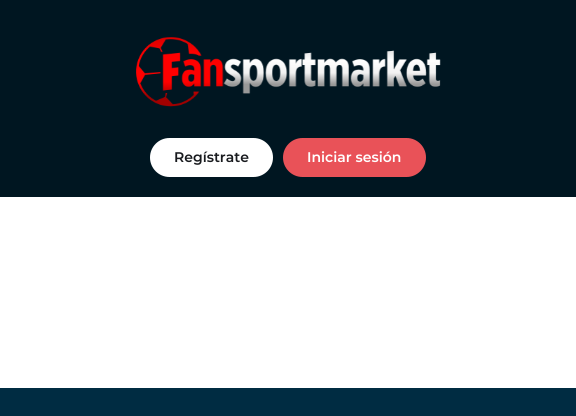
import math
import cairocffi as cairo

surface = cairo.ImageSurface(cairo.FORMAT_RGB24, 576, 416)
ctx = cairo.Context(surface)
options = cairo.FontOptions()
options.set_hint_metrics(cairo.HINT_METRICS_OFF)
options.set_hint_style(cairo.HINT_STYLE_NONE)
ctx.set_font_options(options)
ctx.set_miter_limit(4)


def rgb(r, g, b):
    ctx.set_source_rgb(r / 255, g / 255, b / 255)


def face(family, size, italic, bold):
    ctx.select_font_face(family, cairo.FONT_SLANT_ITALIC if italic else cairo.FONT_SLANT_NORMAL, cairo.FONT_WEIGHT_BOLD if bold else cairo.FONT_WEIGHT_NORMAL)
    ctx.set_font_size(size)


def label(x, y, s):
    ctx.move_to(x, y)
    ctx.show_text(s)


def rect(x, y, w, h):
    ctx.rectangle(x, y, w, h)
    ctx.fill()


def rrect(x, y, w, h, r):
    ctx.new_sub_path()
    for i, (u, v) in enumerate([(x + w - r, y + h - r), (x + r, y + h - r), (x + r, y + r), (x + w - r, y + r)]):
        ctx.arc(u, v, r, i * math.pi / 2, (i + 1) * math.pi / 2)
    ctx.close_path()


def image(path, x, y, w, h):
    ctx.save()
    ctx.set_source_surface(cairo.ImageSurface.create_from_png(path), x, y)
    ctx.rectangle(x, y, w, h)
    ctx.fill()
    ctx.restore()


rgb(255, 255, 255)
ctx.paint()
rgb(0, 22, 33)
rect(0, 0, 576, 197)
image('image0.png', 136, 37, 305, 70)
rgb(255, 255, 255)
rrect(150, 138, 123, 39, 19.5)
ctx.fill()
face('Montserrat SemiBold', 14, 0, 0)
rgb(24, 26, 30)
label(174, 162, 'Regístrate')
rgb(233, 82, 88)
rrect(283, 138, 143, 39, 19.5)
ctx.fill()
rgb(255, 255, 255)
label(307, 162, 'Iniciar sesión')
rgb(0, 44, 66)
rect(0, 388, 576, 28)
surface.write_to_png('render.png')
